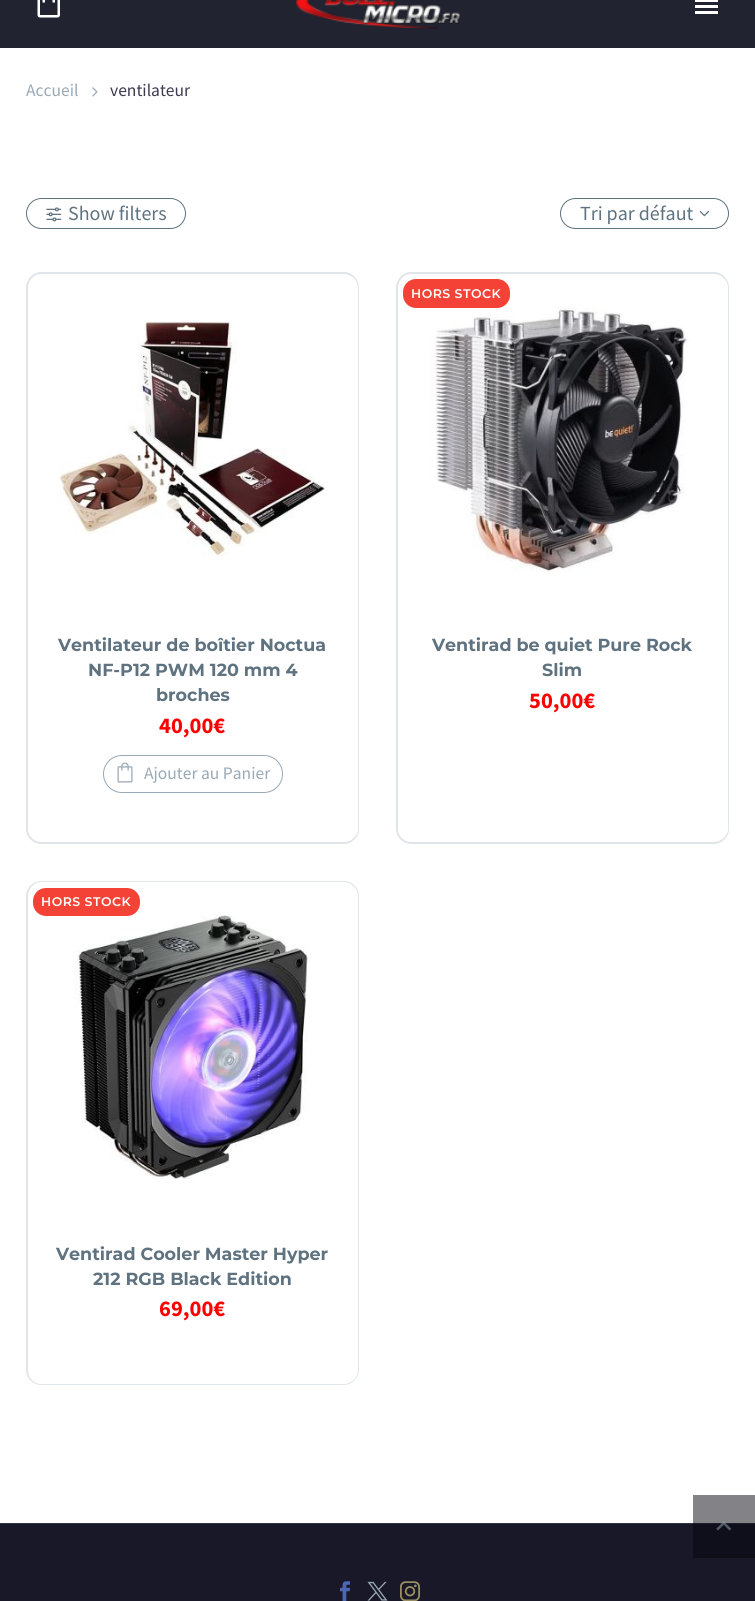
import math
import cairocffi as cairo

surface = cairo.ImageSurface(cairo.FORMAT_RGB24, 755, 1601)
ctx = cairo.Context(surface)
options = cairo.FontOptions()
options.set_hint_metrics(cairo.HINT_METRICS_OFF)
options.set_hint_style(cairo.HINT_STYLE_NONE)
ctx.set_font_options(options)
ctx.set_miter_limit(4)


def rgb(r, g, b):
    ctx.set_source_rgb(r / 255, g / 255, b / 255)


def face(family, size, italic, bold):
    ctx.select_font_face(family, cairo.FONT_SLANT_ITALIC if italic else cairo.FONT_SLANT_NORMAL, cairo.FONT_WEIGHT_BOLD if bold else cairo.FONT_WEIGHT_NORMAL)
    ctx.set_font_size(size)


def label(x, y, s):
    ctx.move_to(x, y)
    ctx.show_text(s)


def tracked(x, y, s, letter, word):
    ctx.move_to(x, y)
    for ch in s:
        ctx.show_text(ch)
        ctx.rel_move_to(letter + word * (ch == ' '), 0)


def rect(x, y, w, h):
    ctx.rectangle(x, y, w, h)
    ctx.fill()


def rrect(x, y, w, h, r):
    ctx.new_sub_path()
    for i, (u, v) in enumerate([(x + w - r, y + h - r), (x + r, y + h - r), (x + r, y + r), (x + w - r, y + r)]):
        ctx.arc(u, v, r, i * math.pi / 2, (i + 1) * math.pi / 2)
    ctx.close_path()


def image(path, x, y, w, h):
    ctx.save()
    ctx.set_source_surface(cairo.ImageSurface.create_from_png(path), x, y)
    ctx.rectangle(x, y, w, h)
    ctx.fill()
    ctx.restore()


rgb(33, 35, 49)
ctx.paint()
image('image0.png', 37, 0, 23, 18)
image('image1.png', 295, 0, 165, 29)
rgb(255, 255, 255)
rect(695, 0, 23, 2)
rect(695, 5, 23, 3)
rect(695, 11, 23, 3)
rect(0, 48, 755, 1475)
rgb(131, 131, 135)
rect(693, 1495, 62, 28)
face('Source Sans Pro', 17.5, 0, 0)
rgb(153, 169, 181)
label(26, 96, 'Accueil')
image('image2.png', 92, 87, 6, 10)
rgb(60, 57, 80)
label(110, 96, 'ventilateur')
rrect(560.5, 198.5, 168, 30, 15)
rgb(95, 114, 127)
ctx.set_line_width(1)
ctx.stroke()
face('Source Sans Pro', 20, 0, 0)
label(580, 220, 'Tri par défaut')
image('image3.png', 699, 211, 10, 6)
rgb(223, 229, 232)
ctx.set_fill_rule(cairo.FILL_RULE_EVEN_ODD)
ctx.new_path()
ctx.move_to(41, 272)
ctx.line_to(344, 272)
ctx.curve_to(352, 272, 359, 279, 359, 288)
ctx.line_to(359, 604)
ctx.line_to(26, 604)
ctx.line_to(26, 288)
ctx.curve_to(26, 279, 33, 272, 41, 272)
ctx.close_path()
ctx.move_to(41, 274)
ctx.line_to(344, 274)
ctx.curve_to(351, 274, 358, 280, 358, 288)
ctx.line_to(358, 604)
ctx.line_to(28, 604)
ctx.line_to(28, 288)
ctx.curve_to(28, 280, 34, 274, 41, 274)
ctx.close_path()
ctx.fill()
image('image4.png', 60, 321, 265, 240)
ctx.new_path()
ctx.move_to(26, 604)
ctx.line_to(359, 604)
ctx.line_to(359, 829)
ctx.curve_to(359, 837, 352, 844, 344, 844)
ctx.line_to(41, 844)
ctx.curve_to(33, 844, 26, 837, 26, 829)
ctx.close_path()
ctx.move_to(28, 604)
ctx.line_to(358, 604)
ctx.line_to(358, 829)
ctx.curve_to(358, 836, 351, 842, 344, 842)
ctx.line_to(41, 842)
ctx.curve_to(34, 842, 28, 836, 28, 829)
ctx.close_path()
ctx.fill()
face('Montserrat', 17.5, 0, 1)
rgb(95, 114, 127)
label(58, 651, 'Ventilateur de boîtier Noctua')
label(88, 676, 'NF-P12 PWM 120 mm 4')
label(156, 701, 'broches')
face('Source Sans Pro', 22.5, 0, 1)
rgb(255, 0, 0)
label(159, 733, '40,00€')
rrect(103.5, 755.5, 179, 37, 18.5)
rgb(153, 169, 181)
ctx.stroke()
image('image5.png', 117, 762, 16, 21)
face('Source Sans Pro', 17.5, 0, 0)
label(144, 779, 'Ajouter au Panier')
rgb(223, 229, 232)
ctx.new_path()
ctx.move_to(411, 272)
ctx.line_to(714, 272)
ctx.curve_to(722, 272, 729, 279, 729, 288)
ctx.line_to(729, 604)
ctx.line_to(396, 604)
ctx.line_to(396, 288)
ctx.curve_to(396, 279, 403, 272, 411, 272)
ctx.close_path()
ctx.move_to(411, 274)
ctx.line_to(714, 274)
ctx.curve_to(721, 274, 728, 280, 728, 288)
ctx.line_to(728, 604)
ctx.line_to(398, 604)
ctx.line_to(398, 288)
ctx.curve_to(398, 280, 404, 274, 411, 274)
ctx.close_path()
ctx.fill()
image('image6.png', 430, 306, 259, 266)
rgb(244, 67, 54)
rrect(403, 279, 107, 29, 13)
ctx.fill()
face('Montserrat SemiBold', 12.5, 0, 0)
rgb(255, 255, 255)
tracked(411, 298, 'HORS STOCK', 0.5, 0)
rgb(223, 229, 232)
ctx.new_path()
ctx.move_to(396, 604)
ctx.line_to(729, 604)
ctx.line_to(729, 829)
ctx.curve_to(729, 837, 722, 844, 714, 844)
ctx.line_to(411, 844)
ctx.curve_to(403, 844, 396, 837, 396, 829)
ctx.close_path()
ctx.move_to(398, 604)
ctx.line_to(728, 604)
ctx.line_to(728, 829)
ctx.curve_to(728, 836, 721, 842, 714, 842)
ctx.line_to(411, 842)
ctx.curve_to(404, 842, 398, 836, 398, 829)
ctx.close_path()
ctx.fill()
face('Montserrat', 17.5, 0, 1)
rgb(95, 114, 127)
label(432, 651, 'Ventirad be quiet Pure Rock')
label(542, 676, 'Slim')
face('Source Sans Pro', 22.5, 0, 1)
rgb(255, 0, 0)
label(529, 708, '50,00€')
rgb(223, 229, 232)
ctx.new_path()
ctx.move_to(41, 881)
ctx.line_to(344, 881)
ctx.curve_to(352, 881, 359, 888, 359, 896)
ctx.line_to(359, 1212)
ctx.line_to(26, 1212)
ctx.line_to(26, 896)
ctx.curve_to(26, 888, 33, 881, 41, 881)
ctx.close_path()
ctx.move_to(41, 882)
ctx.line_to(344, 882)
ctx.curve_to(351, 882, 358, 889, 358, 896)
ctx.line_to(358, 1212)
ctx.line_to(28, 1212)
ctx.line_to(28, 896)
ctx.curve_to(28, 889, 34, 882, 41, 882)
ctx.close_path()
ctx.fill()
image('image7.png', 74, 915, 234, 264)
rgb(244, 67, 54)
rrect(33, 888, 107, 28, 13)
ctx.fill()
face('Montserrat SemiBold', 12.5, 0, 0)
rgb(255, 255, 255)
tracked(41, 906, 'HORS STOCK', 0.5, 0)
rgb(223, 229, 232)
ctx.new_path()
ctx.move_to(26, 1212)
ctx.line_to(359, 1212)
ctx.line_to(359, 1370)
ctx.curve_to(359, 1378, 352, 1385, 344, 1385)
ctx.line_to(41, 1385)
ctx.curve_to(33, 1385, 26, 1378, 26, 1370)
ctx.close_path()
ctx.move_to(28, 1212)
ctx.line_to(358, 1212)
ctx.line_to(358, 1370)
ctx.curve_to(358, 1378, 351, 1384, 344, 1384)
ctx.line_to(41, 1384)
ctx.curve_to(34, 1384, 28, 1378, 28, 1370)
ctx.close_path()
ctx.fill()
face('Montserrat', 17.5, 0, 1)
rgb(95, 114, 127)
label(56, 1260, 'Ventirad Cooler Master Hyper')
label(93, 1285, '212 RGB Black Edition')
face('Source Sans Pro', 22.5, 0, 1)
rgb(255, 0, 0)
label(159, 1316, '69,00€')
rrect(26.5, 198.5, 159, 30, 15)
rgb(95, 114, 127)
ctx.stroke()
image('image8.png', 46, 207, 16, 15)
face('Source Sans Pro', 20, 0, 0)
label(68, 220, 'Show filters')
rgb(24, 24, 40)
rect(0, 1524, 755, 77)
rgb(15, 15, 28)
rect(693, 1524, 62, 34)
rgb(28, 30, 43)
rect(693, 1523, 62, 1)
image('image9.png', 716, 1521, 16, 10)
rgb(49, 54, 70)
rect(0, 1523, 693, 1)
image('image10.png', 340, 1581, 10, 20)
image('image11.png', 367, 1581, 21, 20)
image('image12.png', 400, 1581, 20, 20)
surface.write_to_png('render.png')
